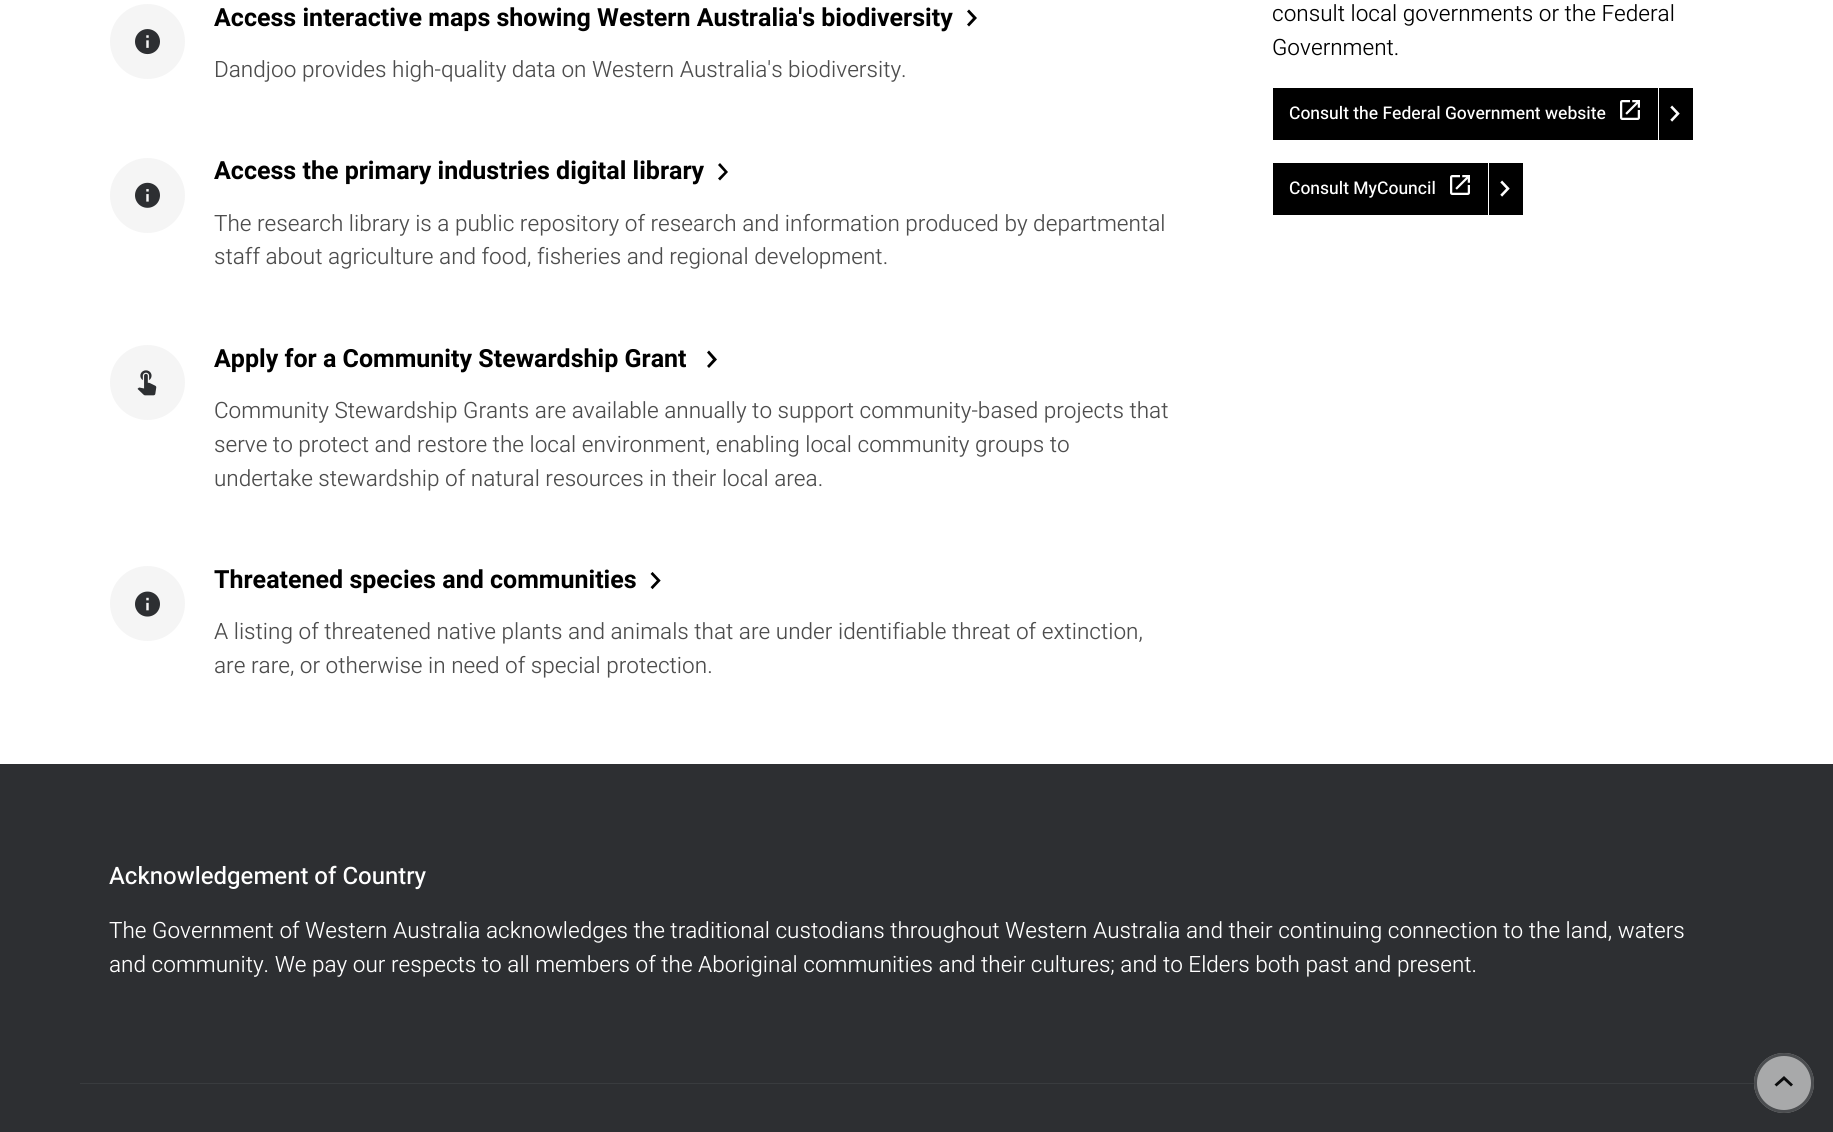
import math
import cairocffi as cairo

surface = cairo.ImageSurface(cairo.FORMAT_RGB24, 1833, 1132)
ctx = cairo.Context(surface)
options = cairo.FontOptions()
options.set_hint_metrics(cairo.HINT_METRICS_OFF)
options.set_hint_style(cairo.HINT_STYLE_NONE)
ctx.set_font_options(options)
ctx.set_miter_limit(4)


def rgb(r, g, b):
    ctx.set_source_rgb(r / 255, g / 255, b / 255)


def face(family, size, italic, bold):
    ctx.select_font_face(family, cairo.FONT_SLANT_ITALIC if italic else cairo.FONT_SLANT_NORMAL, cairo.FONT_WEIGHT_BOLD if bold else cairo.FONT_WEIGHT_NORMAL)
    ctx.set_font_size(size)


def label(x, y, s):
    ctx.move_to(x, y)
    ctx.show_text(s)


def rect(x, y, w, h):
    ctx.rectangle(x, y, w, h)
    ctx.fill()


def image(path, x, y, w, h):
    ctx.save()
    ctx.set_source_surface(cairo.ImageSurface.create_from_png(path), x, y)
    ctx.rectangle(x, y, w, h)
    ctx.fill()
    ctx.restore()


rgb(255, 255, 255)
ctx.paint()
rgb(245, 245, 245)
ctx.arc(147.5, 41.5, 37.5, 0, 2 * math.pi)
ctx.fill()
image('image0.png', 135, 29, 25, 26)
face('Heebo', 25, 0, 1)
rgb(0, 0, 0)
label(214, 26, 'Access interactive maps showing Western Australia\'s biodiversity')
ctx.new_path()
ctx.move_to(967, 11.5)
ctx.line_to(969, 9.5)
ctx.line_to(977, 18)
ctx.line_to(969, 26.5)
ctx.line_to(967, 24.5)
ctx.line_to(973, 18)
ctx.close_path()
ctx.fill()
face('Heebo Light', 22.5, 0, 0)
rgb(77, 77, 77)
label(214, 77, 'Dandjoo provides high-quality data on Western Australia\'s biodiversity.')
rgb(245, 245, 245)
ctx.new_path()
ctx.arc(147.5, 195.5, 37.5, 0, 2 * math.pi)
ctx.fill()
image('image1.png', 135, 182, 25, 26)
face('Heebo', 25, 0, 1)
rgb(0, 0, 0)
label(214, 179, 'Access the primary industries digital library')
ctx.new_path()
ctx.move_to(718, 165)
ctx.line_to(720, 163)
ctx.line_to(728, 172)
ctx.line_to(720, 180.5)
ctx.line_to(718, 178.5)
ctx.line_to(724.5, 172)
ctx.close_path()
ctx.fill()
face('Heebo Light', 22.5, 0, 0)
rgb(77, 77, 77)
label(214, 231, 'The research library is a public repository of research and information produced by departmental')
label(214, 264, 'staff about agriculture and food, fisheries and regional development.')
rgb(245, 245, 245)
ctx.new_path()
ctx.arc(147.5, 382.5, 37.5, 0, 2 * math.pi)
ctx.fill()
image('image2.png', 137, 370, 20, 26)
face('Heebo', 25, 0, 1)
rgb(0, 0, 0)
label(214, 367, 'Apply for a Community Stewardship Grant')
ctx.new_path()
ctx.move_to(707, 352.5)
ctx.line_to(709, 350.5)
ctx.line_to(717, 359.5)
ctx.line_to(709, 368)
ctx.line_to(707, 366)
ctx.line_to(713, 359.5)
ctx.close_path()
ctx.fill()
face('Heebo Light', 22.5, 0, 0)
rgb(77, 77, 77)
label(214, 418, 'Community Stewardship Grants are available annually to support community-based projects that')
label(214, 452, 'serve to protect and restore the local environment, enabling local community groups to')
label(214, 486, 'undertake stewardship of natural resources in their local area.')
rgb(245, 245, 245)
ctx.new_path()
ctx.arc(147.5, 603.5, 37.5, 0, 2 * math.pi)
ctx.fill()
image('image3.png', 135, 591, 25, 26)
face('Heebo', 25, 0, 1)
rgb(0, 0, 0)
label(214, 588, 'Threatened species and communities')
image('image4.png', 650, 572, 11, 18)
face('Heebo Light', 22.5, 0, 0)
rgb(77, 77, 77)
label(214, 639, 'A listing of threatened native plants and animals that are under identifiable threat of extinction,')
label(214, 673, 'are rare, or otherwise in need of special protection.')
rgb(0, 0, 0)
label(1272, 21, 'consult local governments or the Federal')
label(1272, 55, 'Government.')
rect(1273, 88, 420, 52)
face('Heebo Medium', 17.5, 0, 0)
rgb(255, 255, 255)
label(1289, 119, 'Consult the Federal Government website')
image('image5.png', 1620, 100, 20, 20)
rect(1658, 88, 1, 52)
image('image6.png', 1670, 105, 10, 17)
rgb(0, 0, 0)
rect(1273, 163, 250, 52)
rgb(255, 255, 255)
label(1289, 194, 'Consult MyCouncil')
image('image5.png', 1450, 175, 20, 20)
rect(1488, 163, 1, 52)
image('image6.png', 1500, 180, 10, 17)
rgb(45, 47, 50)
rect(0, 764, 1833, 368)
face('Heebo Medium', 24, 0, 0)
rgb(255, 255, 255)
label(109, 884, 'Acknowledgement of Country')
face('Heebo Light', 22.5, 0, 0)
label(109, 938, 'The Government of Western Australia acknowledges the traditional custodians throughout Western Australia and their continuing connection to the land, waters')
label(109, 972, 'and community. We pay our respects to all members of the Aboriginal communities and their cultures; and to Elders both past and present.')
rgb(57, 60, 63)
rect(80, 1083, 1675, 1)
ctx.set_source_rgba(0.82, 0.82, 0.82, 0.75)
ctx.new_path()
ctx.arc(1784, 1083, 30, 0, 2 * math.pi)
ctx.fill()
ctx.arc(1784, 1083, 28.5, 0, 2 * math.pi)
ctx.set_source_rgba(0.176, 0.184, 0.196, 0.75)
ctx.set_line_width(3)
ctx.stroke()
rgb(11, 12, 13)
ctx.new_path()
ctx.move_to(1776.5, 1086.5)
ctx.line_to(1774.5, 1084.5)
ctx.line_to(1784, 1076)
ctx.line_to(1793, 1084.5)
ctx.line_to(1791, 1086.5)
ctx.line_to(1784, 1080)
ctx.close_path()
ctx.fill()
surface.write_to_png('render.png')
